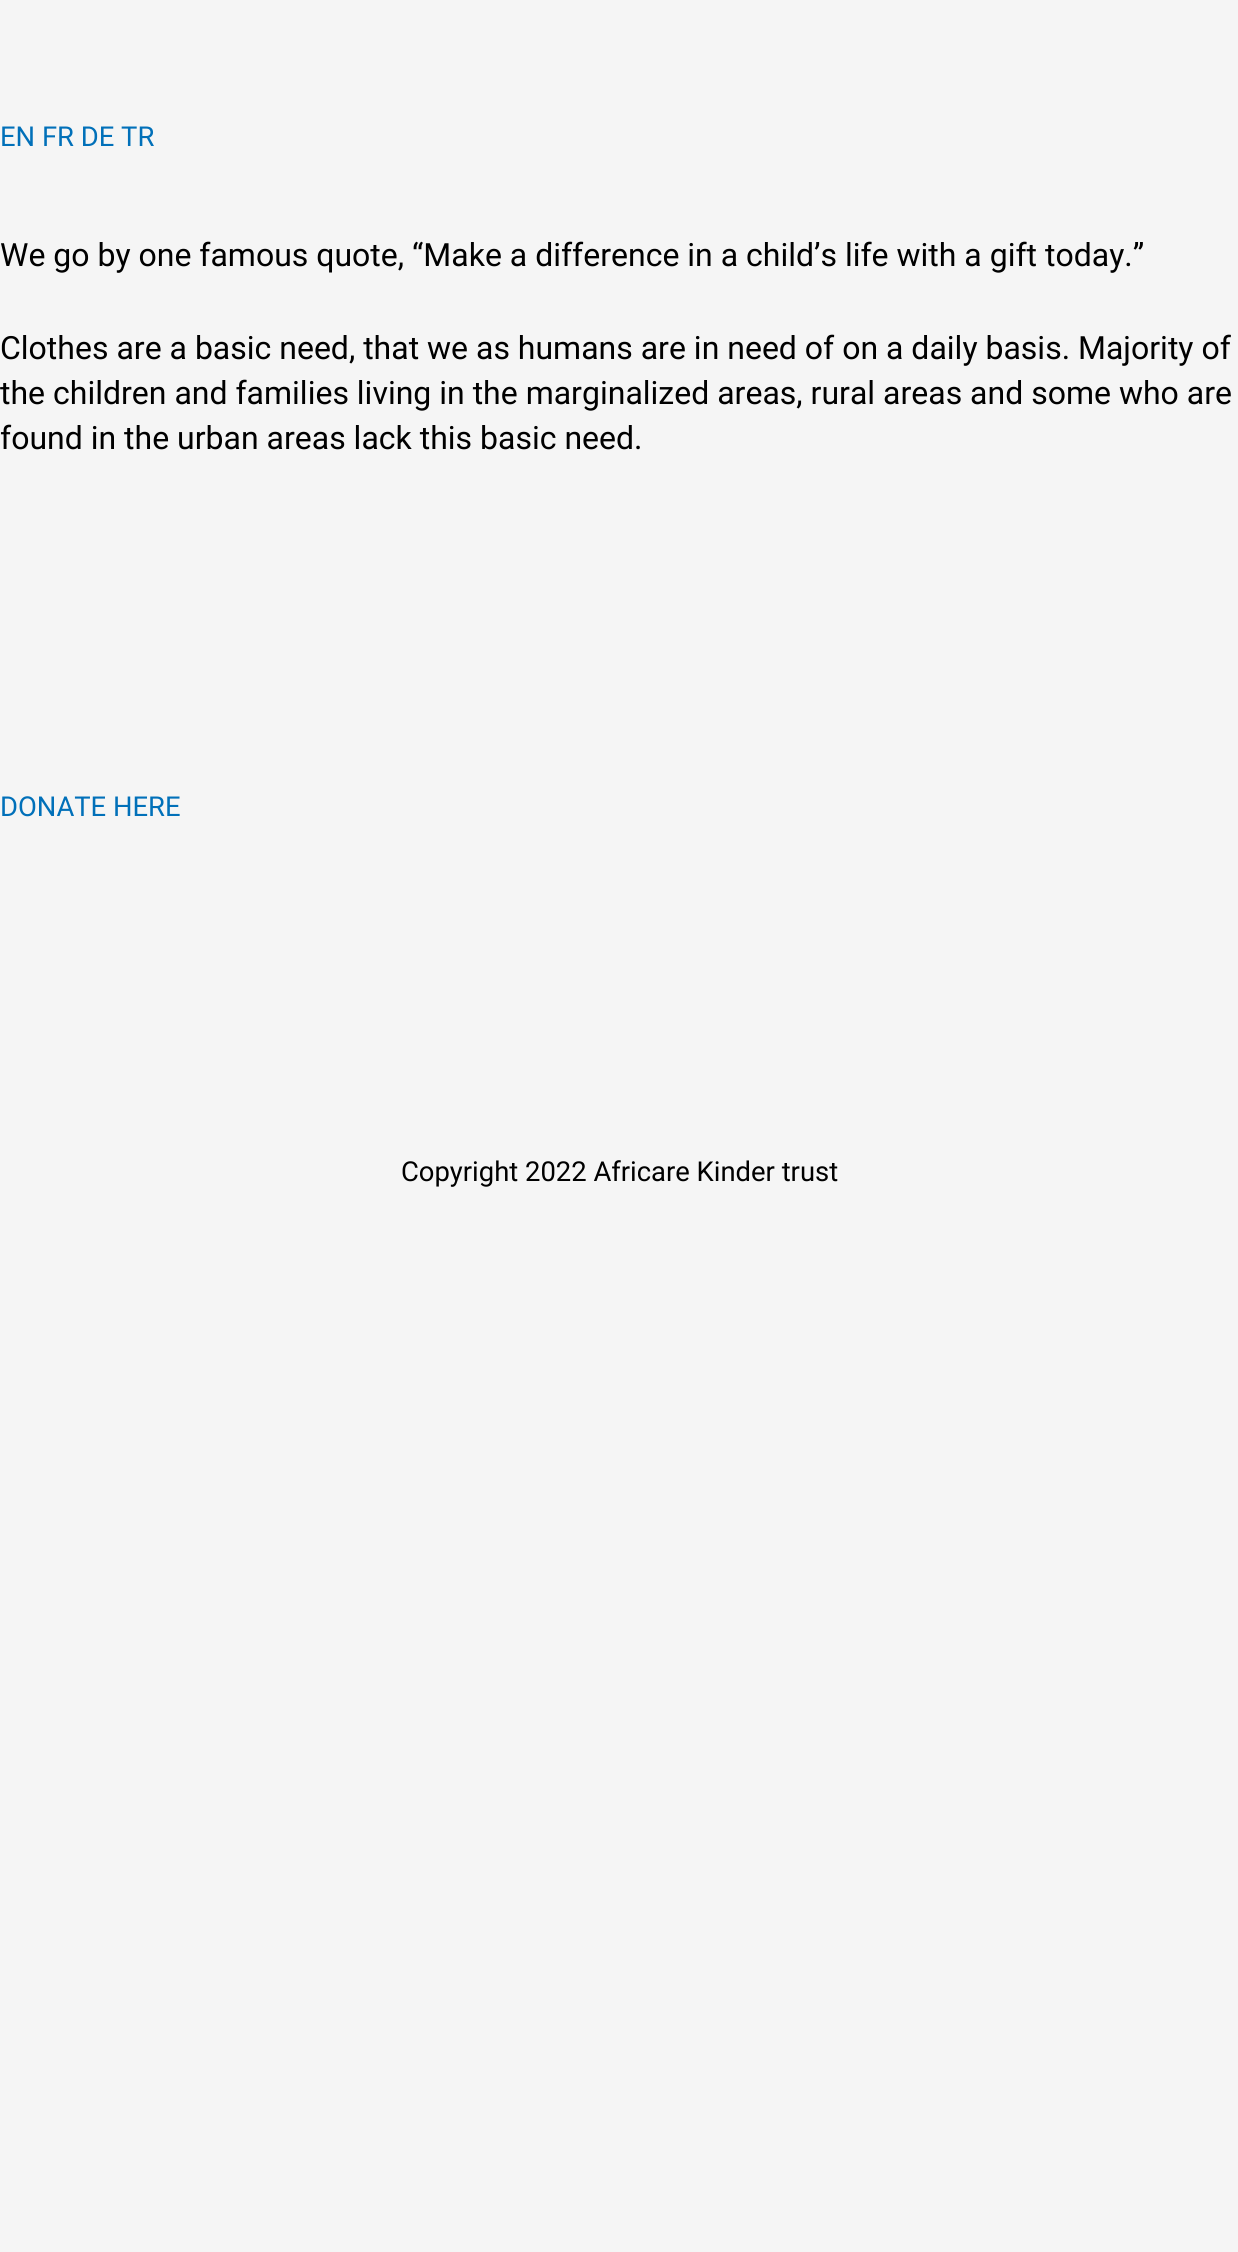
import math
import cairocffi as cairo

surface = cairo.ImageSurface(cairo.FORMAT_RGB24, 1238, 2252)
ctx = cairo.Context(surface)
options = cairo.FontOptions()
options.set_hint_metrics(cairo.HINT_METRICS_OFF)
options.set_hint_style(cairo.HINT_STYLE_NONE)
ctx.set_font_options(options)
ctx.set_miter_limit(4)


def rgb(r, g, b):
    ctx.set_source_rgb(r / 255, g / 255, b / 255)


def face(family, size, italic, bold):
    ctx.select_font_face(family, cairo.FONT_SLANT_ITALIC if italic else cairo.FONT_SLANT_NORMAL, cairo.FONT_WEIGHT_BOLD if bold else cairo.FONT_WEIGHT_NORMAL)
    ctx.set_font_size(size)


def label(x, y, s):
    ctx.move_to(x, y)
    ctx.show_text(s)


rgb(245, 245, 245)
ctx.paint()
face('Roboto', 27.4, 0, 0)
rgb(1, 112, 185)
label(0, 146, 'EN FR DE TR')
face('Roboto', 32, 0, 0)
rgb(0, 0, 0)
label(0, 266, 'We go by one famous quote, “Make a difference in a child’s life with a gift today.”')
label(0, 359, 'Clothes are a basic need, that we as humans are in need of on a daily basis. Majority of')
label(0, 404, 'the children and families living in the marginalized areas, rural areas and some who are')
label(0, 449, 'found in the urban areas lack this basic need.')
face('Roboto', 27.4, 0, 0)
rgb(1, 112, 185)
label(0, 816, 'DONATE HERE')
rgb(0, 0, 0)
label(401, 1181, 'Copyright 2022 Africare Kinder trust')
surface.write_to_png('render.png')
